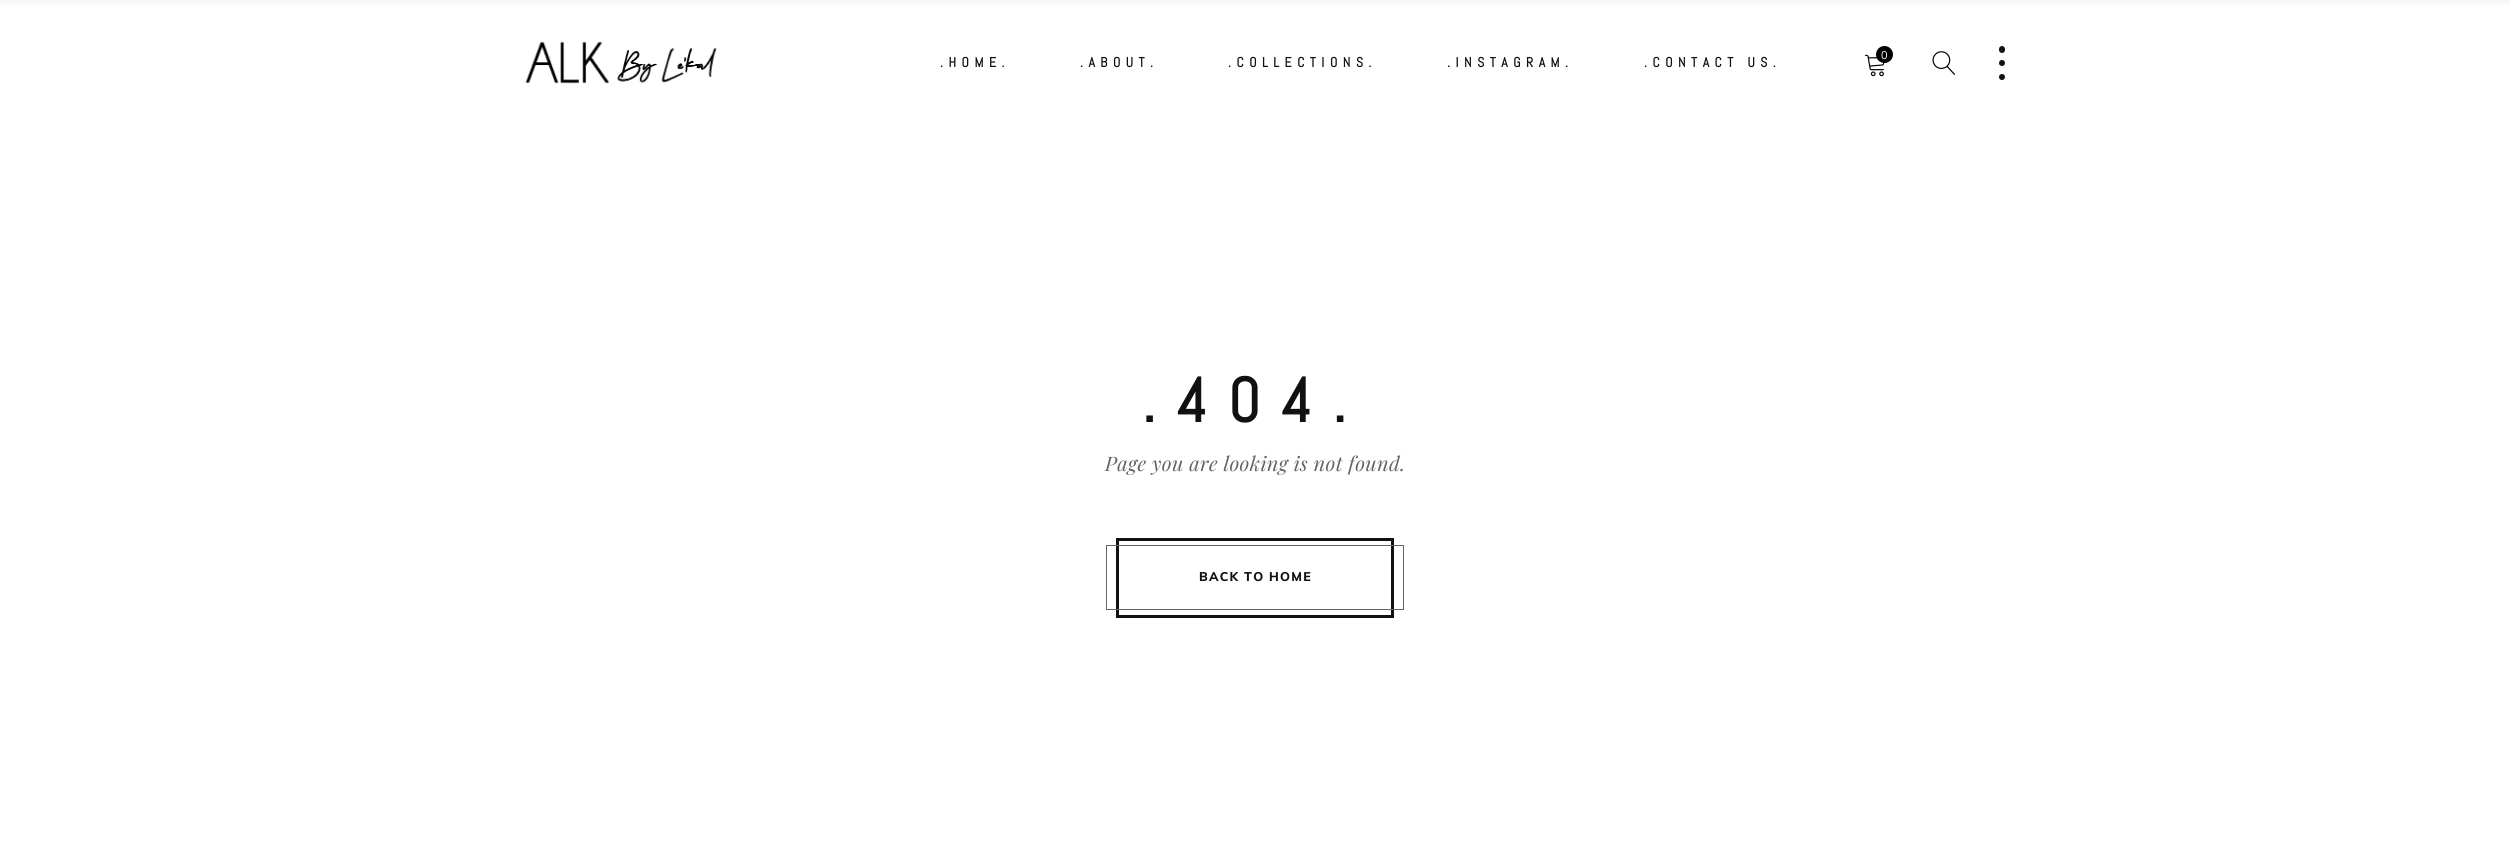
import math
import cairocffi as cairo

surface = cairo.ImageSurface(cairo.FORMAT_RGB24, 2510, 868)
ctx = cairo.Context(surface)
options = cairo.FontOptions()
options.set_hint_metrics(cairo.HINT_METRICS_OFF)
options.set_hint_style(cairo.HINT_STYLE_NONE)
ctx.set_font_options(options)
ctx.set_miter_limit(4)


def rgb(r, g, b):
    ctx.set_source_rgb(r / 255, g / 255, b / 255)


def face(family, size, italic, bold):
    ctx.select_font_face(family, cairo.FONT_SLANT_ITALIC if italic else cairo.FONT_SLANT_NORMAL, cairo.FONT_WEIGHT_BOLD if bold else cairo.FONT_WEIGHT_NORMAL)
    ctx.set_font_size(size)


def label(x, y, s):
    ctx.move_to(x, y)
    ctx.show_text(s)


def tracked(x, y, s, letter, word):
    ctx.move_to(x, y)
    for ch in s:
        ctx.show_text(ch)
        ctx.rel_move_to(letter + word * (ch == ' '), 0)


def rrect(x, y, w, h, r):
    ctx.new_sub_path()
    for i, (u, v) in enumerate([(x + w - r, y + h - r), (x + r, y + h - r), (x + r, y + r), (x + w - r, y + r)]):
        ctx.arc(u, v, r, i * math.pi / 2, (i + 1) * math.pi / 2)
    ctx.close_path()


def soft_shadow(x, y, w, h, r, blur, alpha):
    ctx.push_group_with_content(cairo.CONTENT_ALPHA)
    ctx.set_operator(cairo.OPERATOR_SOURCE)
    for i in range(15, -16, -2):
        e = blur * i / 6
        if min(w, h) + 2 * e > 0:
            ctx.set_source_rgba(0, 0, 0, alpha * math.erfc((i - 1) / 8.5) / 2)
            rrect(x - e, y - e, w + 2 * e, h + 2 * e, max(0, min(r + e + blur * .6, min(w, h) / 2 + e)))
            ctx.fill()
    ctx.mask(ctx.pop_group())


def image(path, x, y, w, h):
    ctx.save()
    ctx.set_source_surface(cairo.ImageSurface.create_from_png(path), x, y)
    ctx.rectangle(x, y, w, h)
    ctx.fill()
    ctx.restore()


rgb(255, 255, 255)
ctx.paint()
rgb(0, 0, 0)
soft_shadow(0, -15, 2510, 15, 0, 5, 0.09)
image('image0.png', 525, 41, 192, 43)
image('image1.png', 1865, 54, 20, 23)
rgb(0, 0, 0)
ctx.arc(1884.5, 54.5, 8.5, 0, 2 * math.pi)
ctx.fill()
face('Muli', 11, 0, 0)
rgb(255, 255, 255)
label(1881, 59, '0')
image('image2.png', 1932, 51, 23, 24)
rgb(17, 17, 17)
rrect(1999, 46, 6, 7, 3)
ctx.fill()
ctx.arc(2002, 63, 3, 0, 2 * math.pi)
ctx.fill()
ctx.arc(2002, 77, 3, 0, 2 * math.pi)
ctx.fill()
face('Abel', 13.75, 0, 1)
tracked(940, 67, '.HOME.', 5.5, 0)
tracked(1080, 67, '.ABOUT.', 5.5, 0)
tracked(1228, 67, '.COLLECTIONS.', 5.5, 0)
tracked(1447, 67, '.INSTAGRAM.', 5.5, 0)
tracked(1644, 67, '.CONTACT US.', 5.5, 0)
face('Abel', 62.5, 0, 1)
tracked(1142, 422, '.404.', 20.5, 0)
face('Playfair Display', 20, 1, 0)
rgb(99, 99, 99)
tracked(1105, 471, 'Page you are looking is not found.', 0.4, 0)
ctx.rectangle(1117.5, 539.5, 275, 77)
rgb(17, 17, 17)
ctx.set_line_width(3)
ctx.stroke()
ctx.rectangle(1106.5, 545.5, 297, 64)
rgb(99, 99, 99)
ctx.set_line_width(1)
ctx.stroke()
face('Muli ExtraBold', 12.5, 0, 0)
rgb(17, 17, 17)
tracked(1199, 581, 'BACK TO HOME', 1.25, 0)
surface.write_to_png('render.png')
